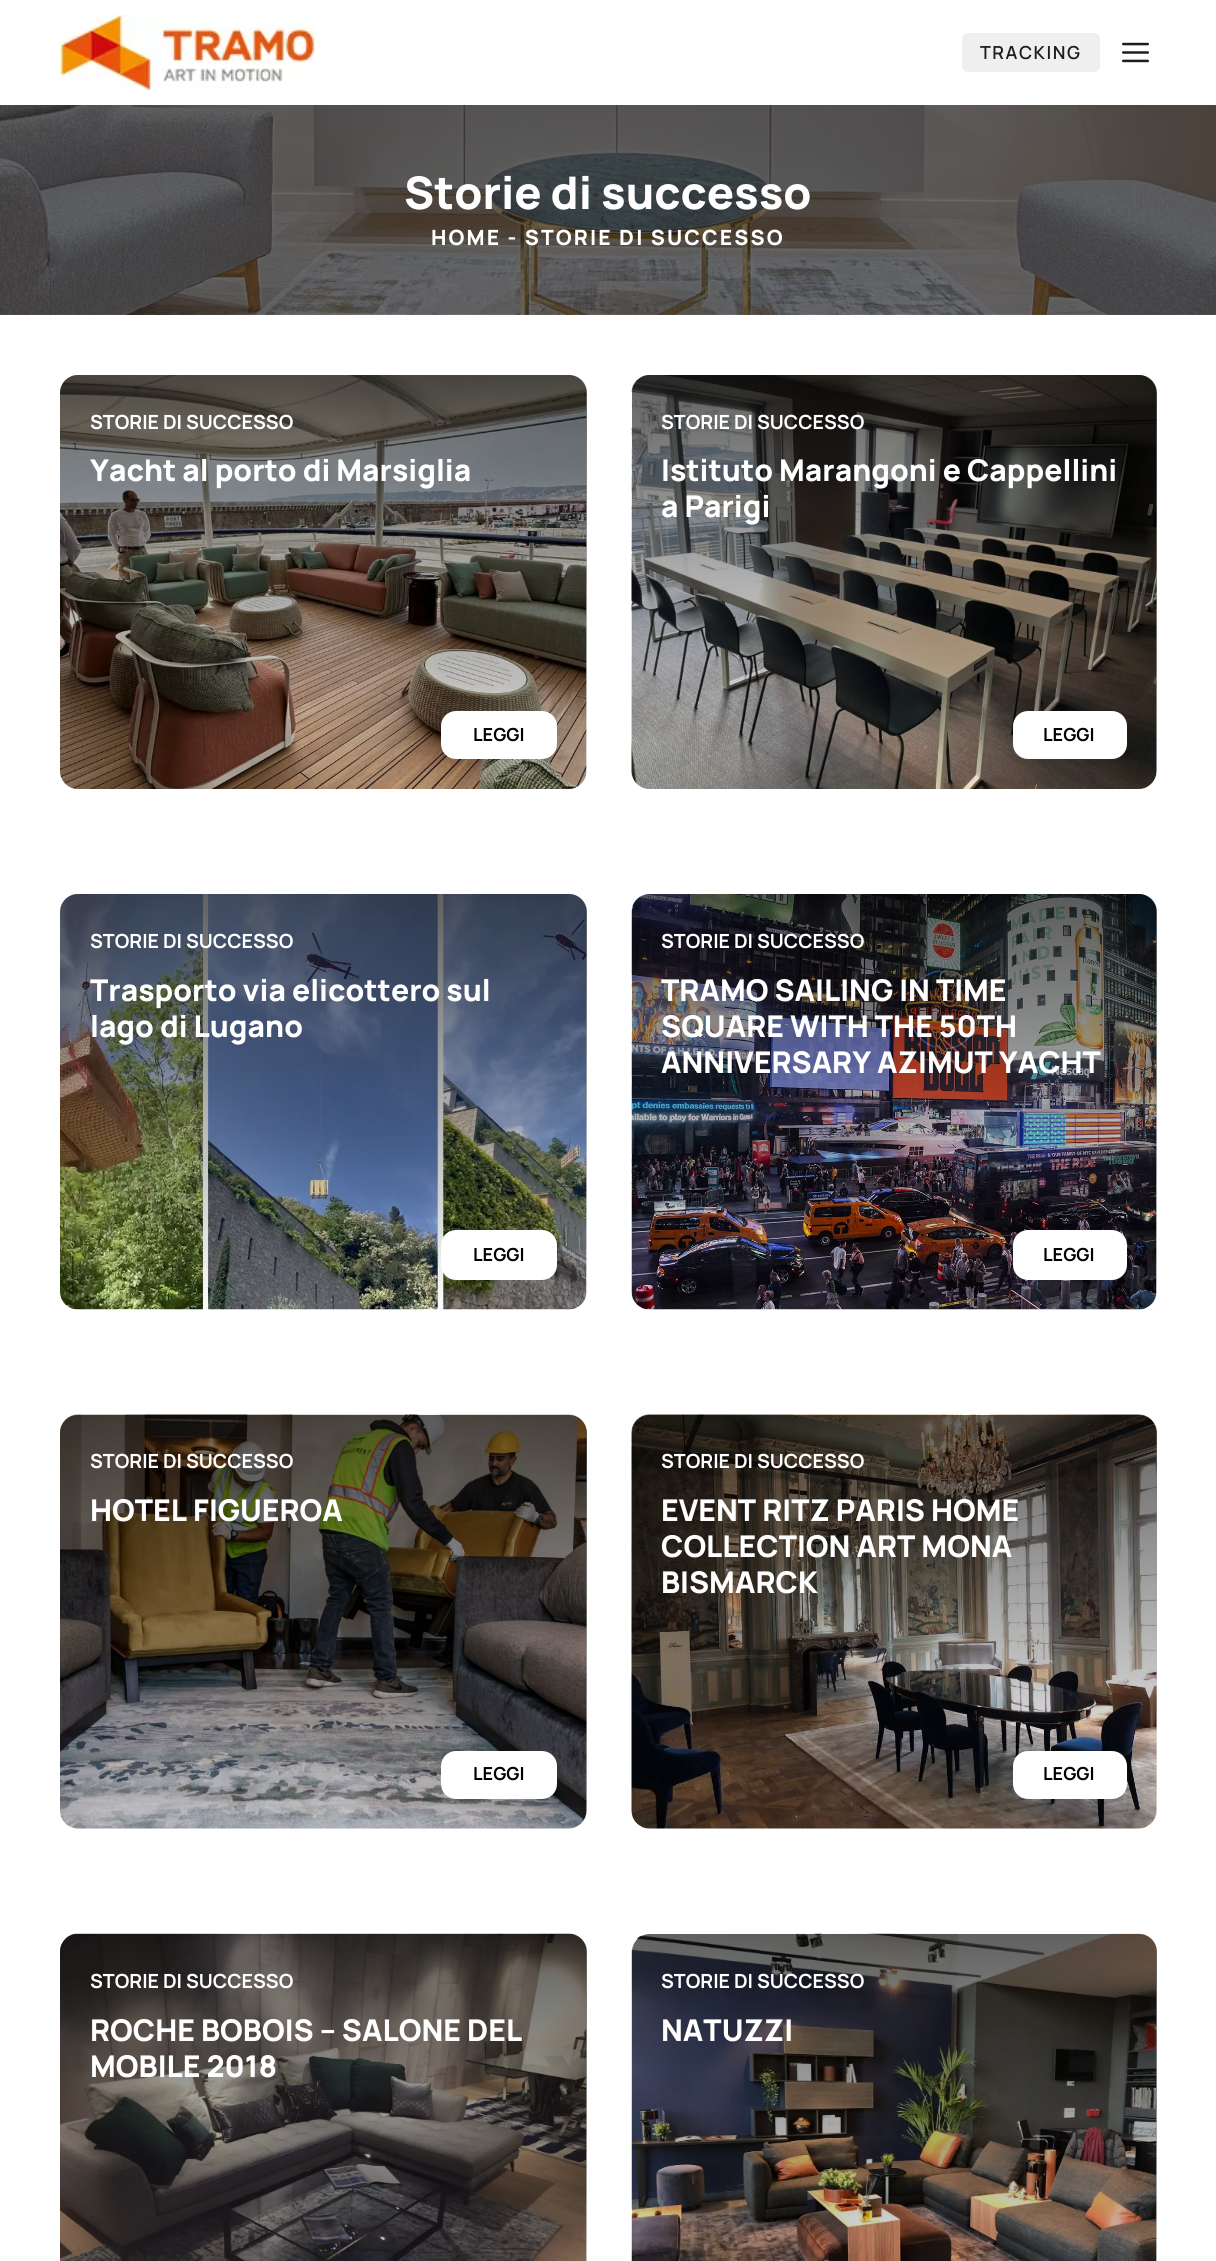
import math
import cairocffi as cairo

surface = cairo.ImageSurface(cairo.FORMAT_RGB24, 1216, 2261)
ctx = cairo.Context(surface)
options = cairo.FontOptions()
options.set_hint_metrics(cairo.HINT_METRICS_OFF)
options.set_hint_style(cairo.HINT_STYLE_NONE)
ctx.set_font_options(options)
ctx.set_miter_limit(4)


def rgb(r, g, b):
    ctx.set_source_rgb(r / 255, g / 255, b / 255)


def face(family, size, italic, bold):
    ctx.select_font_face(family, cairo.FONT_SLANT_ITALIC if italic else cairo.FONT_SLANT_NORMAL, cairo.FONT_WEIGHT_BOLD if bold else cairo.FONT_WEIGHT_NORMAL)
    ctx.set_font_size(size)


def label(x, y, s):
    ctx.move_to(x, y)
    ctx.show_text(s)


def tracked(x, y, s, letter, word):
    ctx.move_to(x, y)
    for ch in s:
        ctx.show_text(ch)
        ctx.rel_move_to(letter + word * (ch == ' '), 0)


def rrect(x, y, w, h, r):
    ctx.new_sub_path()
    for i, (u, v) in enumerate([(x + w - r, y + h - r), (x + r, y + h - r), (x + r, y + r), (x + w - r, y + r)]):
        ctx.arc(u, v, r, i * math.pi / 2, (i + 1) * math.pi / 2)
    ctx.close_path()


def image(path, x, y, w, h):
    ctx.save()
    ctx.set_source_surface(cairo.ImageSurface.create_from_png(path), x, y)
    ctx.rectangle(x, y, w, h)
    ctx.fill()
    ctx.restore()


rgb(255, 255, 255)
ctx.paint()
image('image0.png', 60, 15, 255, 75)
rgb(239, 239, 239)
rrect(962, 33, 138, 39, 6)
ctx.fill()
face('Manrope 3 ExtraLight', 18, 0, 0)
rgb(29, 29, 29)
tracked(980, 59, 'TRACKING', 1.5, 0)
image('image1.png', 1122, 42, 27, 21)
image('image2.png', 0, 105, 1216, 210)
face('Manrope ExtraLight', 45, 0, 0)
rgb(255, 255, 255)
label(404, 209, 'Storie di successo')
face('Manrope ExtraLight', 21, 0, 0)
tracked(431, 245, 'HOME - STORIE DI SUCCESSO', 2.1, 0)
image('image3.png', 60, 375, 527, 414)
gradient = cairo.LinearGradient(323, 375, 323, 789)
gradient.add_color_stop_rgba(0, 0, 0, 0, 0.62)
gradient.add_color_stop_rgba(1, 0, 0, 0, 0)
ctx.set_source(gradient)
rrect(60, 375, 527, 414, 18)
ctx.fill()
face('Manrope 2 ExtraLight', 19.5, 0, 0)
rgb(255, 255, 255)
label(90, 429, 'STORIE DI SUCCESSO')
face('Manrope ExtraLight', 30, 0, 0)
label(90, 481, 'Yacht al porto di Marsiglia')
rrect(442, 712, 114, 46, 14)
ctx.fill_preserve()
ctx.stroke()
face('Manrope 2 ExtraLight', 18, 0, 0)
rgb(0, 0, 0)
label(473, 741, 'LEGGI')
image('image4.png', 631, 375, 526, 414)
gradient = cairo.LinearGradient(894, 375, 894, 789)
gradient.add_color_stop_rgba(0, 0, 0, 0, 0.62)
gradient.add_color_stop_rgba(1, 0, 0, 0, 0)
ctx.set_source(gradient)
rrect(632, 375, 525, 414, 18)
ctx.fill()
face('Manrope 2 ExtraLight', 19.5, 0, 0)
rgb(255, 255, 255)
label(661, 429, 'STORIE DI SUCCESSO')
face('Manrope ExtraLight', 30, 0, 0)
label(661, 481, 'Istituto Marangoni e Cappellini')
label(661, 517, 'a Parigi')
rrect(1014, 712, 112, 46, 14)
ctx.fill_preserve()
ctx.stroke()
face('Manrope 2 ExtraLight', 18, 0, 0)
rgb(0, 0, 0)
label(1043, 741, 'LEGGI')
image('image5.png', 60, 894, 527, 416)
gradient = cairo.LinearGradient(323, 894, 323, 1310)
gradient.add_color_stop_rgba(0, 0, 0, 0, 0.62)
gradient.add_color_stop_rgba(1, 0, 0, 0, 0)
ctx.set_source(gradient)
rrect(60, 894, 527, 416, 18)
ctx.fill()
face('Manrope 2 ExtraLight', 19.5, 0, 0)
rgb(255, 255, 255)
label(90, 948, 'STORIE DI SUCCESSO')
face('Manrope ExtraLight', 30, 0, 0)
label(90, 1001, 'Trasporto via elicottero sul')
label(90, 1037, 'lago di Lugano')
rrect(442, 1231, 114, 48, 14)
ctx.fill_preserve()
ctx.stroke()
face('Manrope 2 ExtraLight', 18, 0, 0)
rgb(0, 0, 0)
label(473, 1261, 'LEGGI')
image('image6.png', 631, 894, 526, 416)
gradient = cairo.LinearGradient(894, 894, 894, 1310)
gradient.add_color_stop_rgba(0, 0, 0, 0, 0.62)
gradient.add_color_stop_rgba(1, 0, 0, 0, 0)
ctx.set_source(gradient)
rrect(632, 894, 525, 416, 18)
ctx.fill()
face('Manrope 2 ExtraLight', 19.5, 0, 0)
rgb(255, 255, 255)
label(661, 948, 'STORIE DI SUCCESSO')
face('Manrope ExtraLight', 30, 0, 0)
label(661, 1001, 'TRAMO SAILING IN TIME')
label(661, 1037, 'SQUARE WITH THE 50TH')
label(661, 1073, 'ANNIVERSARY AZIMUT YACHT')
rrect(1014, 1231, 112, 48, 14)
ctx.fill_preserve()
ctx.stroke()
face('Manrope 2 ExtraLight', 18, 0, 0)
rgb(0, 0, 0)
label(1043, 1261, 'LEGGI')
image('image7.png', 60, 1414, 527, 415)
gradient = cairo.LinearGradient(323, 1415, 323, 1829)
gradient.add_color_stop_rgba(0, 0, 0, 0, 0.62)
gradient.add_color_stop_rgba(1, 0, 0, 0, 0)
ctx.set_source(gradient)
rrect(60, 1415, 527, 414, 18)
ctx.fill()
face('Manrope 2 ExtraLight', 19.5, 0, 0)
rgb(255, 255, 255)
label(90, 1468, 'STORIE DI SUCCESSO')
face('Manrope ExtraLight', 30, 0, 0)
label(90, 1521, 'HOTEL FIGUEROA')
rrect(442, 1752, 114, 46, 14)
ctx.fill_preserve()
ctx.stroke()
face('Manrope 2 ExtraLight', 18, 0, 0)
rgb(0, 0, 0)
label(473, 1780, 'LEGGI')
image('image8.png', 631, 1414, 526, 415)
gradient = cairo.LinearGradient(894, 1415, 894, 1829)
gradient.add_color_stop_rgba(0, 0, 0, 0, 0.62)
gradient.add_color_stop_rgba(1, 0, 0, 0, 0)
ctx.set_source(gradient)
rrect(632, 1415, 525, 414, 18)
ctx.fill()
face('Manrope 2 ExtraLight', 19.5, 0, 0)
rgb(255, 255, 255)
label(661, 1468, 'STORIE DI SUCCESSO')
face('Manrope ExtraLight', 30, 0, 0)
label(661, 1521, 'EVENT RITZ PARIS HOME')
label(661, 1557, 'COLLECTION ART MONA')
label(661, 1593, 'BISMARCK')
rrect(1014, 1752, 112, 46, 14)
ctx.fill_preserve()
ctx.stroke()
face('Manrope 2 ExtraLight', 18, 0, 0)
rgb(0, 0, 0)
label(1043, 1780, 'LEGGI')
image('image9.png', 60, 1933, 527, 328)
gradient = cairo.LinearGradient(323, 1934, 323, 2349)
gradient.add_color_stop_rgba(0, 0, 0, 0, 0.62)
gradient.add_color_stop_rgba(1, 0, 0, 0, 0)
ctx.set_source(gradient)
rrect(60, 1934, 527, 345, 18)
ctx.fill()
face('Manrope 2 ExtraLight', 19.5, 0, 0)
rgb(255, 255, 255)
label(90, 1988, 'STORIE DI SUCCESSO')
face('Manrope ExtraLight', 30, 0, 0)
label(90, 2041, 'ROCHE BOBOIS – SALONE DEL')
label(90, 2077, 'MOBILE 2018')
image('image10.png', 631, 1933, 526, 328)
gradient = cairo.LinearGradient(894, 1934, 894, 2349)
gradient.add_color_stop_rgba(0, 0, 0, 0, 0.62)
gradient.add_color_stop_rgba(1, 0, 0, 0, 0)
ctx.set_source(gradient)
rrect(632, 1934, 525, 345, 18)
ctx.fill()
face('Manrope 2 ExtraLight', 19.5, 0, 0)
rgb(255, 255, 255)
label(661, 1988, 'STORIE DI SUCCESSO')
face('Manrope ExtraLight', 30, 0, 0)
label(661, 2041, 'NATUZZI')
surface.write_to_png('render.png')
